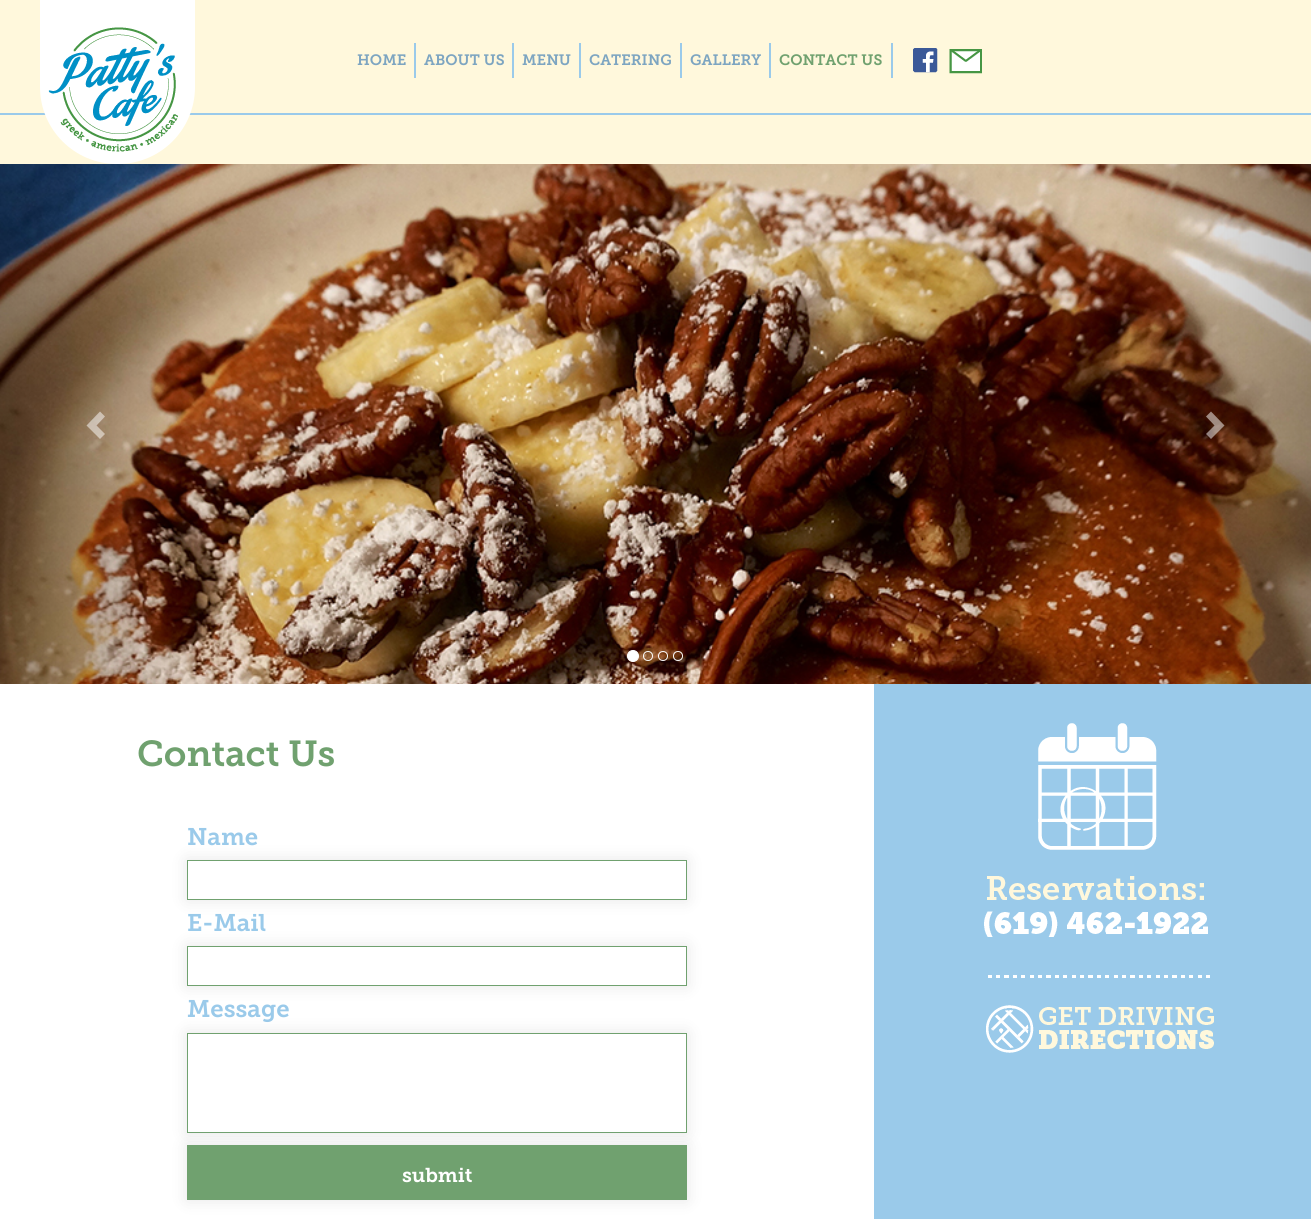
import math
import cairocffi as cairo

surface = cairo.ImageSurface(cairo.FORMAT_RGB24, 1311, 1219)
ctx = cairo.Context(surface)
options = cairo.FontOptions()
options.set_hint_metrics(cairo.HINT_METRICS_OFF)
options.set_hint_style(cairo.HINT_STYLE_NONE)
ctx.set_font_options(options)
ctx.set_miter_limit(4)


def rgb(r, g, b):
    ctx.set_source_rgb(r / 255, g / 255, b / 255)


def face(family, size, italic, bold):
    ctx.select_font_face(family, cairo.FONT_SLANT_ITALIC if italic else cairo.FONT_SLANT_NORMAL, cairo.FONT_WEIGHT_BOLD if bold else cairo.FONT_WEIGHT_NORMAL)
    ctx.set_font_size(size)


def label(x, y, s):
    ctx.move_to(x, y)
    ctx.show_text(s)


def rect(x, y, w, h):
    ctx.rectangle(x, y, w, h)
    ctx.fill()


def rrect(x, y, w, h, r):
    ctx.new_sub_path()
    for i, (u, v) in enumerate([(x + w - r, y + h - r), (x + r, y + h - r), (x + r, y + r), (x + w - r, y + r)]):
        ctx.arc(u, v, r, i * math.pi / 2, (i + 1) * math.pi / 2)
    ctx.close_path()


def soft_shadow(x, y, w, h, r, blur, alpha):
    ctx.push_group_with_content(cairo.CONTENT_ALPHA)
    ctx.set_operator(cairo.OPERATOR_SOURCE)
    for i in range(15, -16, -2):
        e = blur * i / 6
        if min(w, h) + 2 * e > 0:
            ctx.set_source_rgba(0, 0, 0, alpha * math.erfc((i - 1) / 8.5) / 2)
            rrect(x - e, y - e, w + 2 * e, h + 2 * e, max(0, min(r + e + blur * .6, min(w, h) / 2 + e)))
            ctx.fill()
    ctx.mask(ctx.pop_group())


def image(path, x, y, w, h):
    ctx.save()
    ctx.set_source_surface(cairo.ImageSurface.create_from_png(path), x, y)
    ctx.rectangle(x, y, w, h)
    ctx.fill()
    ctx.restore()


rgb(255, 248, 220)
ctx.paint()
rgb(154, 202, 234)
rect(0, 113, 1311, 2)
rgb(255, 255, 255)
ctx.new_path()
ctx.move_to(40, 0)
ctx.line_to(195, 0)
ctx.line_to(195, 87)
ctx.curve_to(195, 129.5, 160.5, 164, 118, 164)
ctx.line_to(117, 164)
ctx.curve_to(74.5, 164, 40, 129.5, 40, 87)
ctx.close_path()
ctx.fill()
image('image0.png', 48, 27, 130, 125)
rgb(154, 202, 234)
rect(414, 43, 2, 35)
face('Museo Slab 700 SemiBold', 15, 0, 0)
rgb(125, 165, 193)
label(357, 65, 'HOME')
rgb(154, 202, 234)
rect(512, 43, 2, 35)
rgb(125, 165, 193)
label(424, 65, 'ABOUT US')
rgb(154, 202, 234)
rect(579, 43, 2, 35)
rgb(125, 165, 193)
label(522, 65, 'MENU')
rgb(154, 202, 234)
rect(680, 43, 2, 35)
rgb(125, 165, 193)
label(589, 65, 'CATERING')
rgb(154, 202, 234)
rect(769, 43, 2, 35)
rgb(125, 165, 193)
label(690, 65, 'GALLERY')
rgb(154, 202, 234)
rect(891, 43, 2, 35)
rgb(112, 161, 111)
label(779, 65, 'CONTACT US')
image('image1.png', 913, 48, 25, 25)
image('image2.png', 949, 49, 33, 25)
image('image3.png', 0, 164, 1311, 520)
ctx.set_source_rgba(1, 1, 1, 0.5)
ctx.new_path()
ctx.move_to(105, 416.5)
ctx.line_to(96.5, 425.5)
ctx.line_to(105, 434)
ctx.line_to(100, 439)
ctx.line_to(86.5, 425.5)
ctx.line_to(100, 411.5)
ctx.close_path()
ctx.fill()
ctx.new_path()
ctx.move_to(1224.5, 425.5)
ctx.line_to(1211, 439)
ctx.line_to(1206, 434)
ctx.line_to(1214.5, 425.5)
ctx.line_to(1206, 416.5)
ctx.line_to(1211, 411.5)
ctx.close_path()
ctx.fill()
rgb(255, 255, 255)
ctx.arc(633, 656, 5.5, 0, 2 * math.pi)
ctx.fill_preserve()
ctx.set_line_width(1)
ctx.stroke()
ctx.arc(648, 656, 4.5, 0, 2 * math.pi)
ctx.stroke()
ctx.arc(663, 656, 4.5, 0, 2 * math.pi)
ctx.stroke()
ctx.arc(678, 656, 4.5, 0, 2 * math.pi)
ctx.stroke()
rect(0, 684, 874, 535)
face('Museo Slab 700 SemiBold', 36, 0, 0)
rgb(112, 161, 111)
label(137, 766, 'Contact Us')
face('Museo Slab 700 SemiBold', 24, 0, 0)
rgb(154, 202, 234)
label(187, 845, 'Name')
ctx.save()
ctx.set_fill_rule(cairo.FILL_RULE_EVEN_ODD)
ctx.new_path()
ctx.move_to(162, 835)
ctx.line_to(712, 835)
ctx.line_to(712, 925)
ctx.line_to(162, 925)
ctx.close_path()
ctx.move_to(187, 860)
ctx.line_to(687, 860)
ctx.line_to(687, 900)
ctx.line_to(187, 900)
ctx.close_path()
ctx.clip()
rgb(0, 0, 0)
soft_shadow(187, 860, 500, 40, 0, 8, 0.1)
ctx.restore()
ctx.rectangle(187.5, 860.5, 499, 39)
rgb(112, 161, 111)
ctx.stroke()
rgb(154, 202, 234)
label(187, 931, 'E-Mail')
ctx.save()
ctx.set_fill_rule(cairo.FILL_RULE_EVEN_ODD)
ctx.new_path()
ctx.move_to(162, 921)
ctx.line_to(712, 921)
ctx.line_to(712, 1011)
ctx.line_to(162, 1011)
ctx.close_path()
ctx.move_to(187, 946)
ctx.line_to(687, 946)
ctx.line_to(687, 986)
ctx.line_to(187, 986)
ctx.close_path()
ctx.clip()
rgb(0, 0, 0)
soft_shadow(187, 946, 500, 40, 0, 8, 0.1)
ctx.restore()
ctx.rectangle(187.5, 946.5, 499, 39)
rgb(112, 161, 111)
ctx.stroke()
rgb(154, 202, 234)
label(187, 1017, 'Message')
ctx.save()
ctx.set_fill_rule(cairo.FILL_RULE_EVEN_ODD)
ctx.new_path()
ctx.move_to(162, 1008)
ctx.line_to(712, 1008)
ctx.line_to(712, 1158)
ctx.line_to(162, 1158)
ctx.close_path()
ctx.move_to(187, 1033)
ctx.line_to(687, 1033)
ctx.line_to(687, 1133)
ctx.line_to(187, 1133)
ctx.close_path()
ctx.clip()
rgb(0, 0, 0)
soft_shadow(187, 1033, 500, 100, 0, 8, 0.1)
ctx.restore()
ctx.rectangle(187.5, 1033.5, 499, 99)
rgb(112, 161, 111)
ctx.stroke()
rgb(0, 0, 0)
soft_shadow(187, 1145, 500, 55, 0, 8, 0.1)
rgb(112, 161, 111)
rect(187, 1145, 500, 55)
face('Museo Slab 700 SemiBold', 20, 0, 0)
rgb(255, 255, 255)
label(402, 1182, 'submit')
rgb(154, 202, 234)
rect(874, 684, 437, 535)
image('image4.png', 984, 723, 230, 330)
surface.write_to_png('render.png')
